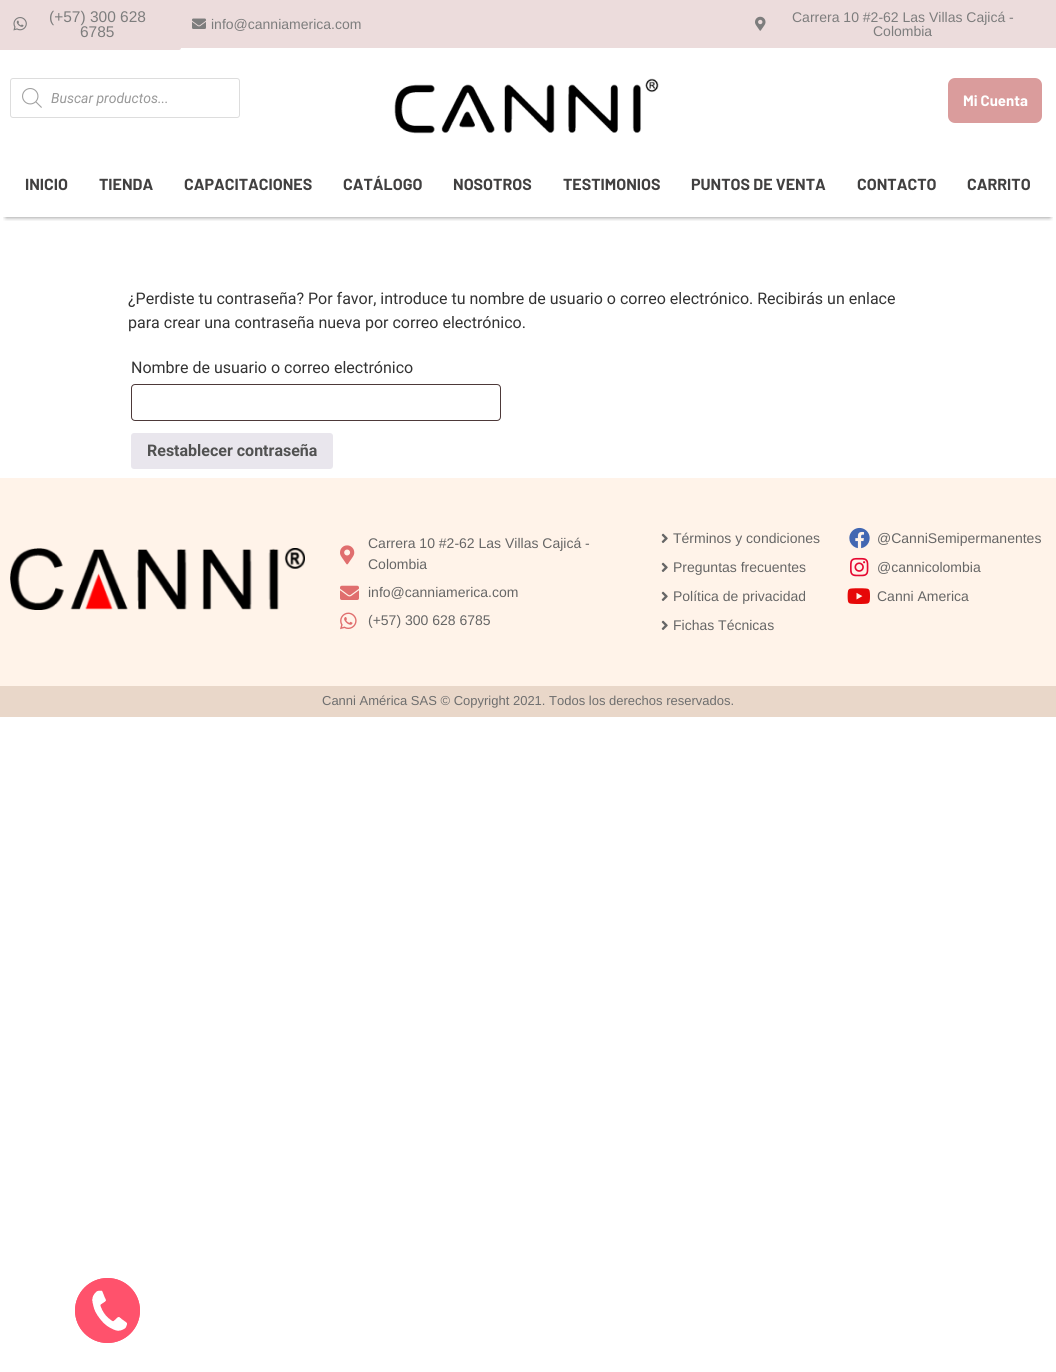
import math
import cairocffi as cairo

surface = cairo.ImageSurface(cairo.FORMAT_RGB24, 1056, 1372)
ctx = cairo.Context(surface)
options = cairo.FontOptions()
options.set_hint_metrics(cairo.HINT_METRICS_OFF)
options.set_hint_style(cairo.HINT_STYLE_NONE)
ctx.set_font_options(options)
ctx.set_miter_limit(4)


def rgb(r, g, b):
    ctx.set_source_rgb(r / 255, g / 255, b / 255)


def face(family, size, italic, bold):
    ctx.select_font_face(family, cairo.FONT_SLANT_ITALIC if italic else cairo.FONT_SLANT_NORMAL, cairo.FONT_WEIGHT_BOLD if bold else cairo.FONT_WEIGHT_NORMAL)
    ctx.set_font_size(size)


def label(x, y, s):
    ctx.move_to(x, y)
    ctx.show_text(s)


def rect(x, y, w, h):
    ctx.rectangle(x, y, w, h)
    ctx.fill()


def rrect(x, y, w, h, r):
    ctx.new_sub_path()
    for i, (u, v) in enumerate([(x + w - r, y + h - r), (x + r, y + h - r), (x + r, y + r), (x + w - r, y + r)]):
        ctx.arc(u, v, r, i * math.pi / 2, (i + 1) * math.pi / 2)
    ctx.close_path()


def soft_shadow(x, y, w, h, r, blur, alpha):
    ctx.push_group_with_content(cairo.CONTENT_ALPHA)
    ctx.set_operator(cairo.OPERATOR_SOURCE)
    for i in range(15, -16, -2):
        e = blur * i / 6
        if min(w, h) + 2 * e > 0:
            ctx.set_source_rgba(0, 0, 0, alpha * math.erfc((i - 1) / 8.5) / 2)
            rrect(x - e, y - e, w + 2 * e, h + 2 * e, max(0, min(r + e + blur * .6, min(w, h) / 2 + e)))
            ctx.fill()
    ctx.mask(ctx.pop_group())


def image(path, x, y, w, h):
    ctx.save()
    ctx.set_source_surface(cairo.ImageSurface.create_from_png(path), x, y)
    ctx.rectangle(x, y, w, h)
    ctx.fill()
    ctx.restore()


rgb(255, 255, 255)
ctx.paint()
rgb(236, 220, 220)
rect(181, 0, 875, 48)
rrect(-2, -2, 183, 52, 2)
ctx.fill()
image('image0.png', 13, 17, 14, 14)
face('Liberation Sans', 15.5, 0, 0)
rgb(125, 125, 125)
label(49, 22, '(+57) 300 628')
label(80, 37, '6785')
image('image1.png', 192, 18, 14, 11)
face('Liberation Sans', 14, 0, 0)
label(211, 29, 'info@canniamerica.com')
image('image2.png', 755, 16, 11, 15)
label(792, 22, 'Carrera 10 #2-62 Las Villas Cajicá -')
label(873, 36, 'Colombia')
rrect(10.5, 78.5, 229, 39, 2.5)
rgb(221, 221, 221)
ctx.set_line_width(1)
ctx.stroke()
image('image3.png', 22, 88, 20, 20)
face('Roboto', 14, 1, 0)
rgb(153, 153, 153)
label(51, 103, 'Buscar productos...')
image('image4.png', 394, 78, 265, 56)
rgb(218, 156, 156)
rrect(948, 78, 94, 45, 7)
ctx.fill()
face('Barlow', 15, 0, 1)
rgb(255, 255, 255)
label(963, 106, 'Mi Cuenta')
ctx.save()
ctx.rectangle(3, 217, 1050, 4)
ctx.clip()
rgb(0, 0, 0)
soft_shadow(6, 163, 1044, 54, 0, 2.5, 0.5)
ctx.restore()
face('Barlow', 16, 0, 1)
rgb(65, 64, 64)
label(25, 190, 'INICIO')
label(99, 190, 'TIENDA')
label(184, 190, 'CAPACITACIONES')
label(343, 190, 'CATÁLOGO')
label(453, 190, 'NOSOTROS')
label(563, 190, 'TESTIMONIOS')
label(691, 190, 'PUNTOS DE VENTA')
label(857, 190, 'CONTACTO')
label(967, 190, 'CARRITO')
face('Roboto', 16, 0, 0)
rgb(51, 51, 51)
label(128, 304, '¿Perdiste tu contraseña? Por favor, introduce tu nombre de usuario o correo electrónico. Recibirás un enlace')
label(128, 328, 'para crear una contraseña nueva por correo electrónico.')
label(131, 373, 'Nombre de usuario o correo electrónico')
rrect(131.5, 384.5, 369, 36, 3.5)
rgb(77, 57, 57)
ctx.stroke()
rgb(233, 230, 237)
rrect(131, 433, 202, 36, 3)
ctx.fill()
face('Roboto', 16, 0, 1)
rgb(81, 81, 81)
label(147, 456, 'Restablecer contraseña')
rgb(255, 243, 233)
rect(0, 478, 1056, 208)
image('image5.png', 10, 548, 295, 62)
image('image6.png', 340, 545, 15, 20)
face('Liberation Sans', 14, 0, 0)
rgb(102, 102, 102)
label(368, 548, 'Carrera 10 #2-62 Las Villas Cajicá -')
label(368, 569, 'Colombia')
image('image7.png', 340, 585, 19, 15)
label(368, 597, 'info@canniamerica.com')
image('image8.png', 340, 612, 17, 18)
label(368, 625, '(+57) 300 628 6785')
image('image9.png', 661, 533, 7, 10)
label(673, 543, 'Términos y condiciones')
image('image9.png', 661, 562, 7, 10)
label(673, 572, 'Preguntas frecuentes')
image('image9.png', 661, 591, 7, 10)
label(673, 601, 'Política de privacidad')
image('image9.png', 661, 620, 7, 10)
label(673, 630, 'Fichas Técnicas')
image('image10.png', 849, 527, 21, 22)
label(877, 543, '@CanniSemipermanentes')
image('image11.png', 850, 557, 19, 20)
label(877, 572, '@cannicolombia')
image('image12.png', 847, 588, 23, 16)
label(877, 601, 'Canni America')
rgb(233, 215, 201)
rect(0, 686, 1056, 31)
face('Liberation Sans', 13, 0, 0)
rgb(110, 110, 110)
label(322, 705, 'Canni América SAS © Copyright 2021. Todos los derechos reservados.')
ctx.new_path()
ctx.arc(107.5, 1310.5, 32, 0, 2 * math.pi)
rgb(255, 82, 108)
ctx.stroke()
ctx.arc(107.5, 1310.5, 32.5, 0, 2 * math.pi)
ctx.fill()
image('image13.png', 92, 1290, 35, 41)
surface.write_to_png('render.png')
